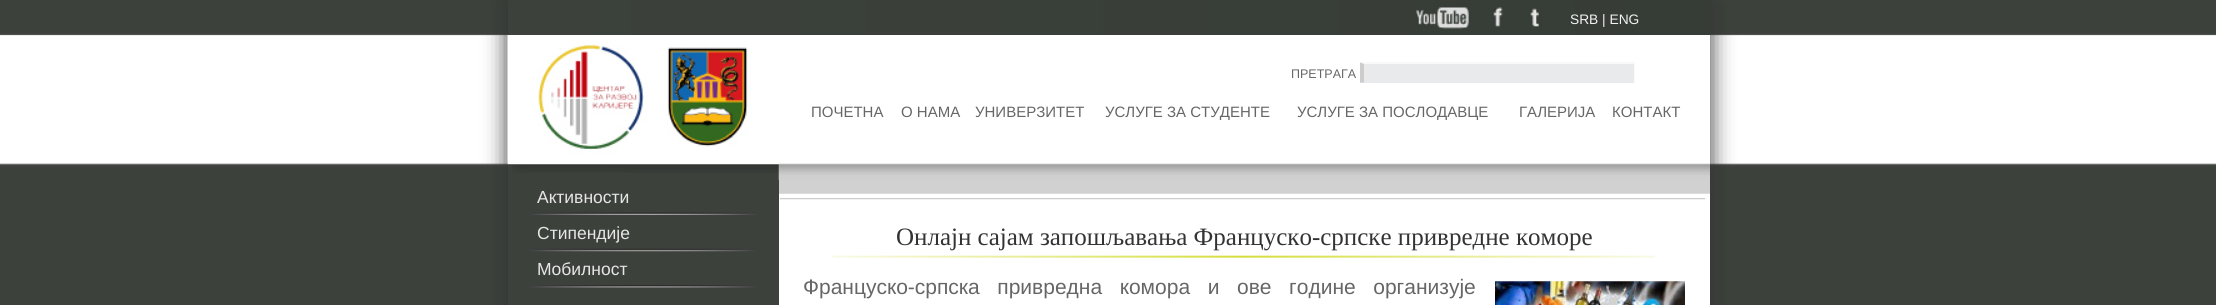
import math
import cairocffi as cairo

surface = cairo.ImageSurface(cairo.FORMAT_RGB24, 2216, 305)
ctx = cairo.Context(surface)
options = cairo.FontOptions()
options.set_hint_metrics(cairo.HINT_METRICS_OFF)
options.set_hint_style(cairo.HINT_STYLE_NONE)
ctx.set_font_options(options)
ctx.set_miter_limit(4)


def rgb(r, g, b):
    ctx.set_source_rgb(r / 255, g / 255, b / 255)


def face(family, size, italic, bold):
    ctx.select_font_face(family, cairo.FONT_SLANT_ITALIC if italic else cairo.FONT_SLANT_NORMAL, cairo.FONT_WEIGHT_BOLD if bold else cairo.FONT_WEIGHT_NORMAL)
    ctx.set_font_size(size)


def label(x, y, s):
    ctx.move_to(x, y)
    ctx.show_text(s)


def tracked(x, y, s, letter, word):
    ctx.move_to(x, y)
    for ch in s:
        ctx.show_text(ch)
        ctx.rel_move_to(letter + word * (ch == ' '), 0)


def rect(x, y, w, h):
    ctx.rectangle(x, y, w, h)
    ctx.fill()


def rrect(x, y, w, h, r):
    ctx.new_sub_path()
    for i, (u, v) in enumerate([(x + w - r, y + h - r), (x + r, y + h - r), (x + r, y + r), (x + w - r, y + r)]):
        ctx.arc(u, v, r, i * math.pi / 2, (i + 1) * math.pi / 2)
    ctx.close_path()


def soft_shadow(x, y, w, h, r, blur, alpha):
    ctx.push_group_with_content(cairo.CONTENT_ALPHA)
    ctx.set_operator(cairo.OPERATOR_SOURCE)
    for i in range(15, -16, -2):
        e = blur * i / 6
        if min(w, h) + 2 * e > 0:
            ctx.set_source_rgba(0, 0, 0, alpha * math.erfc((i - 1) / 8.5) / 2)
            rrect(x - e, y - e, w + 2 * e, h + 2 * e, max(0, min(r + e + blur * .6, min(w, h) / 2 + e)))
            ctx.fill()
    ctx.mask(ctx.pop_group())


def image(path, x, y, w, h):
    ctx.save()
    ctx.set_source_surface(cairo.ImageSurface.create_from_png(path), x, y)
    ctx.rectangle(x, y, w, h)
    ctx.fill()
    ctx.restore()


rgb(255, 255, 255)
ctx.paint()
image('image0.png', 0, 0, 2216, 305)
rgb(50, 50, 50)
soft_shadow(510, 4, 1195, 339, 0, 12.5, 0.76)
soft_shadow(513, 4, 1195, 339, 0, 12.5, 0.76)
rgb(255, 255, 255)
rect(508, 35, 1202, 270)
gradient = cairo.LinearGradient(508, 18, 1710, 17)
gradient.add_color_stop_rgba(0, 0.235, 0.255, 0.235, 1)
gradient.add_color_stop_rgba(1, 0.212, 0.235, 0.212, 1)
ctx.set_source(gradient)
rect(508, 0, 1202, 35)
image('image1.png', 1416, 0, 54, 29)
image('image2.png', 1493, 7, 10, 20)
image('image3.png', 1530, 8, 11, 19)
face('Liberation Sans', 13.75, 0, 0)
rgb(242, 242, 242)
label(1570, 24, 'SRB | ENG')
image('image4.png', 507, 35, 241, 129)
face('Liberation Sans', 12.5, 0, 0)
rgb(102, 102, 102)
label(1291, 78, 'ПРЕТРАГА')
rgb(233, 234, 235)
rect(1360, 63, 274, 20)
rgb(249, 249, 249)
ctx.new_path()
ctx.move_to(1360, 62)
ctx.line_to(1635, 62)
ctx.line_to(1634, 64)
ctx.line_to(1364, 64)
ctx.close_path()
ctx.fill()
rect(1634, 63, 1, 20)
rgb(204, 204, 204)
ctx.new_path()
ctx.move_to(1360, 82.5)
ctx.line_to(1360, 62.5)
ctx.line_to(1364, 64)
ctx.line_to(1364, 82.5)
ctx.close_path()
ctx.fill()
face('Liberation Sans', 15, 0, 0)
rgb(102, 102, 102)
label(811, 117, 'ПОЧЕТНА')
label(901, 117, 'О НАМА')
label(975, 117, 'УНИВЕРЗИТЕТ')
label(1105, 117, 'УСЛУГЕ ЗА СТУДЕНТЕ')
label(1297, 117, 'УСЛУГЕ ЗА ПОСЛОДАВЦЕ')
label(1519, 117, 'ГАЛЕРИЈА')
label(1612, 117, 'КОНТАКТ')
rgb(101, 104, 101)
rect(508, 164, 271, 1)
rgb(60, 65, 60)
rect(508, 165, 271, 140)
image('image5.png', 512, 165, 267, 8)
image('image6.png', 530, 212, 226, 3)
face('Liberation Sans', 17.5, 0, 0)
rgb(230, 230, 230)
label(537, 203, 'Активности')
image('image7.png', 530, 248, 226, 4)
label(537, 239, 'Стипендије')
image('image8.png', 530, 285, 226, 3)
label(537, 275, 'Мобилност')
image('image9.png', 778, 163, 932, 17)
rgb(209, 209, 209)
rect(779, 180, 931, 13)
rgb(220, 220, 220)
rect(779, 193, 931, 1)
rgb(204, 204, 204)
rect(780, 198, 925, 1)
rgb(242, 242, 242)
rect(780, 199, 925, 1)
image('image10.png', 832, 255, 823, 3)
face('Liberation Serif', 25, 0, 0)
rgb(51, 51, 51)
label(896, 245, 'Онлајн сајам запошљавања Француско-српске привредне коморе')
face('Liberation Sans', 21, 0, 0)
rgb(102, 102, 102)
tracked(803, 294, 'Француско-српска привредна комора и ове године организује', 0, 11.75)
image('image11.png', 1495, 281, 190, 24)
surface.write_to_png('render.png')
